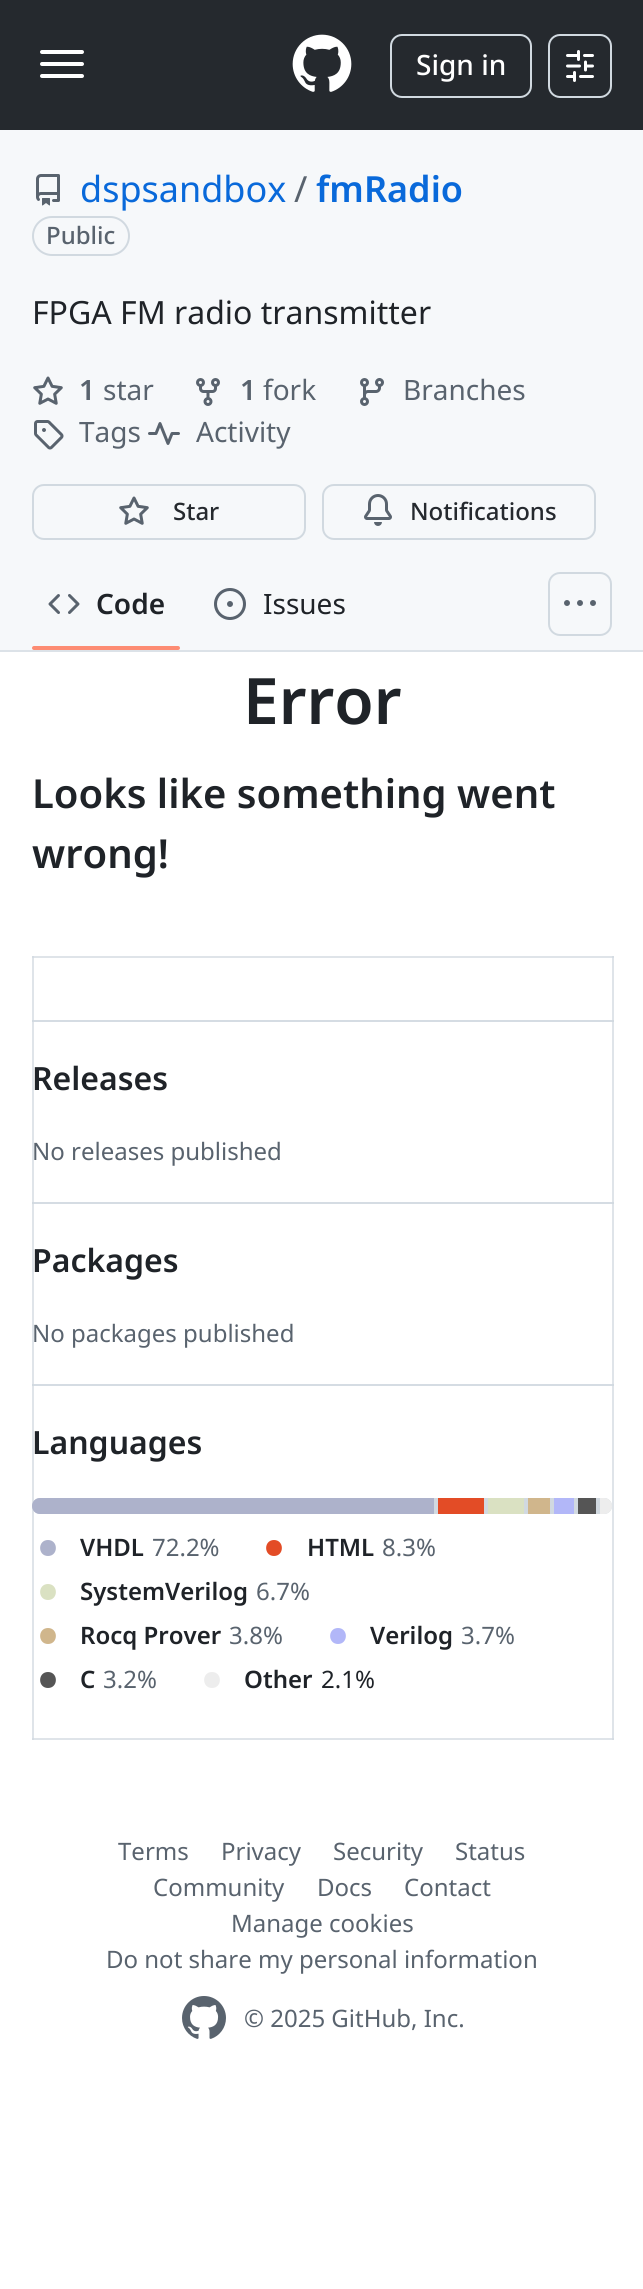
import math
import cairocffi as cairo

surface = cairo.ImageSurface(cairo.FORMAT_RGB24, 643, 2289)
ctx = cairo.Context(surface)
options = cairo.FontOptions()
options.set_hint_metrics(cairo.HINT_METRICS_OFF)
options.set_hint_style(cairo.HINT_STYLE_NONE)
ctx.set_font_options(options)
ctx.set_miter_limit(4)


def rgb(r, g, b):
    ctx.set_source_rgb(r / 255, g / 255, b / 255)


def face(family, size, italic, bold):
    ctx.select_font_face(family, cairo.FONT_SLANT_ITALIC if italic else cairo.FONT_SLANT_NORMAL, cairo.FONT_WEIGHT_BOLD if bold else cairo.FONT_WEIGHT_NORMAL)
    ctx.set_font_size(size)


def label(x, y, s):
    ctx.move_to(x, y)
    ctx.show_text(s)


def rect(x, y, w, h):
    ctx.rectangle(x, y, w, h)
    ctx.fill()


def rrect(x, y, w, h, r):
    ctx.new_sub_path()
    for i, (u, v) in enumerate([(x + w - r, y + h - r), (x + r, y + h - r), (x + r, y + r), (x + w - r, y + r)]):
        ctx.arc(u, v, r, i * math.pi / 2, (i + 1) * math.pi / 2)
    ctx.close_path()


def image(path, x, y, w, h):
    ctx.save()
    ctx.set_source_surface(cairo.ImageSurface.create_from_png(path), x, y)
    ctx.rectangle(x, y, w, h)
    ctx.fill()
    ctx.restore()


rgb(255, 255, 255)
ctx.paint()
rgb(223, 228, 233)
rect(32, 956, 2, 784)
rect(612, 956, 2, 430)
rect(32, 1738, 582, 2)
rgb(213, 220, 227)
rect(32, 1738, 2, 2)
rgb(223, 228, 233)
rect(612, 1384, 2, 356)
rgb(213, 220, 227)
rect(612, 1738, 2, 2)
rgb(37, 41, 46)
rect(0, 0, 643, 130)
rgb(255, 255, 255)
rrect(40, 50, 44, 4, 2)
ctx.fill()
rrect(40, 62, 44, 4, 2)
ctx.fill()
rrect(40, 74, 44, 4, 2)
ctx.fill()
image('image0.png', 292, 34, 60, 58)
rrect(391, 35, 140, 62, 11)
rgb(209, 217, 224)
ctx.stroke()
face('Noto Sans Medium', 28, 0, 0)
rgb(255, 255, 255)
label(416, 75, 'Sign in')
rrect(549, 35, 62, 62, 11)
rgb(209, 217, 224)
ctx.stroke()
image('image1.png', 566, 50, 28, 32)
rgb(246, 248, 250)
rect(0, 130, 643, 520)
image('image2.png', 36, 174, 24, 32)
face('Noto Sans', 36, 0, 0)
rgb(9, 105, 218)
label(80, 202, 'dspsandbox')
rgb(89, 99, 110)
label(294, 202, '/')
face('Noto Sans SemiBold', 36, 0, 0)
rgb(9, 105, 218)
label(316, 202, 'fmRadio')
rrect(33, 217, 96, 38, 19)
rgb(209, 217, 224)
ctx.stroke()
face('Noto Sans Medium', 24, 0, 0)
rgb(89, 99, 110)
label(46, 244, 'Public')
face('Noto Sans', 32, 0, 0)
rgb(31, 35, 40)
label(32, 324, 'FPGA FM radio transmitter')
image('image3.png', 33, 376, 30, 29)
face('Noto Sans SemiBold', 28, 0, 0)
rgb(89, 99, 110)
label(79, 400, '1')
face('Noto Sans', 28, 0, 0)
label(103, 400, 'star')
image('image4.png', 196, 378, 24, 28)
face('Noto Sans SemiBold', 28, 0, 0)
label(240, 400, '1')
face('Noto Sans', 28, 0, 0)
label(263, 400, 'fork')
image('image5.png', 360, 378, 24, 28)
label(403, 400, 'Branches')
image('image6.png', 34, 420, 30, 30)
label(79, 442, 'Tags')
image('image7.png', 148, 422, 32, 23)
label(196, 442, 'Activity')
rrect(33, 485, 272, 54, 11)
rgb(209, 217, 224)
ctx.stroke()
image('image3.png', 119, 496, 30, 29)
face('Noto Sans Medium', 24, 0, 0)
rgb(37, 41, 46)
label(173, 520, 'Star')
rrect(323, 485, 272, 54, 11)
rgb(209, 217, 224)
ctx.stroke()
image('image8.png', 364, 494, 28, 32)
rgb(37, 41, 46)
label(410, 520, 'Notifications')
rgb(220, 226, 232)
rect(0, 650, 643, 2)
image('image9.png', 48, 594, 32, 20)
face('Noto Sans SemiBold', 28, 0, 0)
rgb(31, 35, 40)
label(96, 614, 'Code')
rgb(253, 140, 115)
rrect(32, 646, 148, 4, 2)
ctx.fill()
image('image10.png', 214, 588, 32, 32)
face('Noto Sans', 28, 0, 0)
rgb(31, 35, 40)
label(263, 614, 'Issues')
rrect(549, 573, 62, 62, 11)
rgb(209, 217, 224)
ctx.stroke()
image('image11.png', 564, 600, 32, 6)
face('Noto Sans SemiBold', 64, 0, 0)
rgb(31, 35, 40)
label(243, 724, 'Error')
face('Noto Sans SemiBold', 40, 0, 0)
label(32, 808, 'Looks like something went')
label(32, 868, 'wrong!')
rgb(223, 228, 233)
rect(32, 956, 582, 2)
rgb(213, 220, 227)
rect(32, 956, 2, 2)
rect(612, 956, 2, 2)
rect(32, 1020, 582, 2)
rgb(209, 217, 224)
rect(32, 1020, 2, 2)
rect(612, 1020, 2, 2)
face('Noto Sans SemiBold', 32, 0, 0)
rgb(31, 35, 40)
label(32, 1090, 'Releases')
face('Noto Sans', 24, 0, 0)
rgb(89, 99, 110)
label(32, 1160, 'No releases published')
rgb(213, 220, 227)
rect(32, 1202, 582, 2)
rgb(209, 217, 224)
rect(32, 1202, 2, 2)
rect(612, 1202, 2, 2)
face('Noto Sans SemiBold', 32, 0, 0)
rgb(31, 35, 40)
label(32, 1272, 'Packages')
face('Noto Sans', 24, 0, 0)
rgb(89, 99, 110)
label(32, 1342, 'No packages published')
rgb(213, 220, 227)
rect(32, 1384, 582, 2)
rgb(209, 217, 224)
rect(32, 1384, 2, 2)
rect(612, 1384, 2, 2)
face('Noto Sans SemiBold', 32, 0, 0)
rgb(31, 35, 40)
label(32, 1454, 'Languages')
rgb(209, 217, 224)
rrect(32, 1498, 580, 16, 8)
ctx.fill()
rgb(173, 178, 203)
ctx.new_path()
ctx.move_to(40, 1498)
ctx.line_to(434, 1498)
ctx.line_to(434, 1514)
ctx.line_to(40, 1514)
ctx.curve_to(35.5, 1514, 32, 1510.5, 32, 1506)
ctx.curve_to(32, 1501.5, 35.5, 1498, 40, 1498)
ctx.close_path()
ctx.fill()
rgb(227, 76, 38)
rect(438, 1498, 46, 16)
rgb(218, 225, 194)
rect(488, 1498, 36, 16)
rgb(208, 182, 140)
rect(528, 1498, 22, 16)
rgb(178, 183, 248)
rect(554, 1498, 20, 16)
rgb(85, 85, 85)
rect(578, 1498, 18, 16)
rgb(237, 237, 237)
ctx.new_path()
ctx.move_to(600, 1498)
ctx.line_to(604, 1498)
ctx.curve_to(608.5, 1498, 612, 1501.5, 612, 1506)
ctx.curve_to(612, 1510.5, 608.5, 1514, 604, 1514)
ctx.line_to(600, 1514)
ctx.close_path()
ctx.fill()
rgb(173, 178, 203)
ctx.new_path()
ctx.move_to(48, 1540)
ctx.curve_to(58.5, 1540, 58.5, 1556, 48, 1556)
ctx.curve_to(37.5, 1556, 37.5, 1540, 48, 1540)
ctx.close_path()
ctx.fill()
face('Noto Sans SemiBold', 24, 0, 0)
rgb(31, 35, 40)
label(80, 1556, 'VHDL')
face('Noto Sans', 24, 0, 0)
rgb(89, 99, 110)
label(152, 1556, '72.2%')
rgb(227, 76, 38)
ctx.new_path()
ctx.move_to(274, 1540)
ctx.curve_to(284.5, 1540, 284.5, 1556, 274, 1556)
ctx.curve_to(263.5, 1556, 263.5, 1540, 274, 1540)
ctx.close_path()
ctx.fill()
face('Noto Sans SemiBold', 24, 0, 0)
rgb(31, 35, 40)
label(307, 1556, 'HTML')
face('Noto Sans', 24, 0, 0)
rgb(89, 99, 110)
label(382, 1556, '8.3%')
rgb(218, 225, 194)
ctx.new_path()
ctx.move_to(48, 1584)
ctx.curve_to(58.5, 1584, 58.5, 1600, 48, 1600)
ctx.curve_to(37.5, 1600, 37.5, 1584, 48, 1584)
ctx.close_path()
ctx.fill()
face('Noto Sans SemiBold', 24, 0, 0)
rgb(31, 35, 40)
label(80, 1600, 'SystemVerilog')
face('Noto Sans', 24, 0, 0)
rgb(89, 99, 110)
label(256, 1600, '6.7%')
rgb(208, 182, 140)
ctx.new_path()
ctx.move_to(48, 1628)
ctx.curve_to(58.5, 1628, 58.5, 1644, 48, 1644)
ctx.curve_to(37.5, 1644, 37.5, 1628, 48, 1628)
ctx.close_path()
ctx.fill()
face('Noto Sans SemiBold', 24, 0, 0)
rgb(31, 35, 40)
label(80, 1644, 'Rocq Prover')
face('Noto Sans', 24, 0, 0)
rgb(89, 99, 110)
label(229, 1644, '3.8%')
rgb(178, 183, 248)
ctx.new_path()
ctx.move_to(338, 1628)
ctx.curve_to(348.5, 1628, 348.5, 1644, 338, 1644)
ctx.curve_to(327.5, 1644, 327.5, 1628, 338, 1628)
ctx.close_path()
ctx.fill()
face('Noto Sans SemiBold', 24, 0, 0)
rgb(31, 35, 40)
label(370, 1644, 'Verilog')
face('Noto Sans', 24, 0, 0)
rgb(89, 99, 110)
label(461, 1644, '3.7%')
rgb(85, 85, 85)
ctx.new_path()
ctx.move_to(48, 1672)
ctx.curve_to(58.5, 1672, 58.5, 1688, 48, 1688)
ctx.curve_to(37.5, 1688, 37.5, 1672, 48, 1672)
ctx.close_path()
ctx.fill()
face('Noto Sans SemiBold', 24, 0, 0)
rgb(31, 35, 40)
label(80, 1688, 'C')
face('Noto Sans', 24, 0, 0)
rgb(89, 99, 110)
label(103, 1688, '3.2%')
rgb(237, 237, 237)
ctx.new_path()
ctx.move_to(212, 1672)
ctx.curve_to(222.5, 1672, 222.5, 1688, 212, 1688)
ctx.curve_to(201.5, 1688, 201.5, 1672, 212, 1672)
ctx.close_path()
ctx.fill()
face('Noto Sans SemiBold', 24, 0, 0)
rgb(31, 35, 40)
label(244, 1688, 'Other')
face('Noto Sans', 24, 0, 0)
label(321, 1688, '2.1%')
rgb(89, 99, 110)
label(118, 1860, 'Terms')
label(221, 1860, 'Privacy')
label(333, 1860, 'Security')
label(455, 1860, 'Status')
label(153, 1896, 'Community')
label(317, 1896, 'Docs')
label(404, 1896, 'Contact')
label(231, 1932, 'Manage cookies')
label(106, 1968, 'Do not share my personal information')
image('image12.png', 182, 1996, 44, 43)
label(244, 2027, '© 2025 GitHub, Inc.')
surface.write_to_png('render.png')
